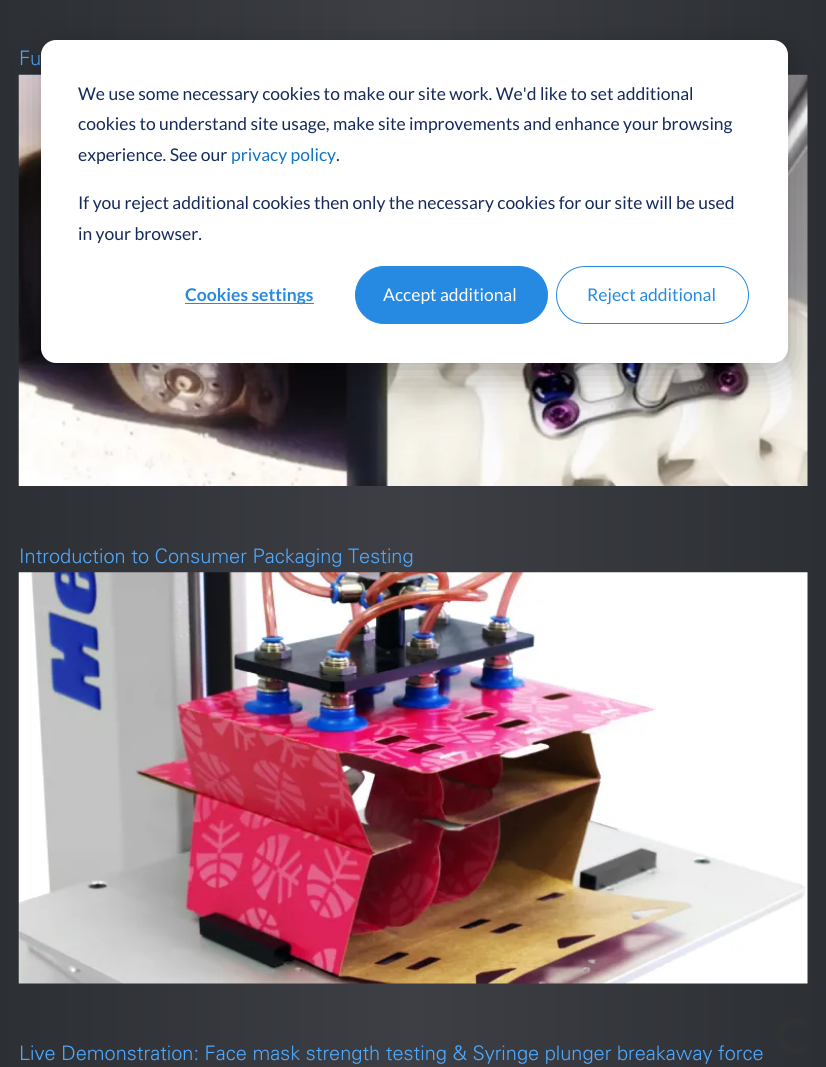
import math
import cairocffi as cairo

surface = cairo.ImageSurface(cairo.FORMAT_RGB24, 826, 1067)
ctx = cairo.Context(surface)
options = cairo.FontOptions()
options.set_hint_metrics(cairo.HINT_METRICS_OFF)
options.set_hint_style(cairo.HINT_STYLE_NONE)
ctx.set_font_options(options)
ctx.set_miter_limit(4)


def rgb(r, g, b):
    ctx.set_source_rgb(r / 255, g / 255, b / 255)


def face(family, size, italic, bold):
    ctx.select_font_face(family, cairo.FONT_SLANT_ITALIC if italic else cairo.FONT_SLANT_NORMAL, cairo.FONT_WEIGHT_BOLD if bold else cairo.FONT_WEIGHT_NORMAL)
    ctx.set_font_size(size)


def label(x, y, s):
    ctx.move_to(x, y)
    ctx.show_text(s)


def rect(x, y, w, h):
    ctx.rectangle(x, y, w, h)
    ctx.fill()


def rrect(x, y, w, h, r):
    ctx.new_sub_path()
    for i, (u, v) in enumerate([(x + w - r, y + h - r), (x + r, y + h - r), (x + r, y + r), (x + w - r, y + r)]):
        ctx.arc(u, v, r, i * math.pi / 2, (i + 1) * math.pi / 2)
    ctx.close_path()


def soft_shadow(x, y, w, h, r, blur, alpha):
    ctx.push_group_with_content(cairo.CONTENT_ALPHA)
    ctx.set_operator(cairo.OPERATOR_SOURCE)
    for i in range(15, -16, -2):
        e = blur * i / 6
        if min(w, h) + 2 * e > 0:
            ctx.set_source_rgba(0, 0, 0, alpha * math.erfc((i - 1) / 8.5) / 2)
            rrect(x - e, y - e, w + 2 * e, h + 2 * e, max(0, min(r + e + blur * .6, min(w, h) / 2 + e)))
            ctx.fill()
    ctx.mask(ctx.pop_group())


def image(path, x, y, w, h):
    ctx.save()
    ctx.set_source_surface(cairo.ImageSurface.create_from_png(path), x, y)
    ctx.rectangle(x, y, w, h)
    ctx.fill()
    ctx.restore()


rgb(255, 255, 255)
ctx.paint()
gradient = cairo.LinearGradient(0, -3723, 826, -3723)
gradient.add_color_stop_rgba(0, 0.173, 0.184, 0.204, 1)
gradient.add_color_stop_rgba(0.5, 0.239, 0.247, 0.271, 1)
gradient.add_color_stop_rgba(1, 0.173, 0.184, 0.204, 1)
ctx.set_source(gradient)
rect(0, 0, 826, 1067)
face('Univers Light', 20, 0, 0)
rgb(78, 170, 255)
label(19, 65, 'Fu')
image('image0.png', 18, 74, 790, 412)
label(19, 563, 'Introduction to Consumer Packaging Testing')
image('image1.png', 18, 572, 790, 412)
label(19, 1060, 'Live Demonstration: Face mask strength testing & Syringe plunger breakaway force')
rgb(0, 0, 0)
soft_shadow(41, 50, 747, 323, 15, 17.5, 0.28)
rgb(255, 255, 255)
rrect(41, 40, 747, 323, 15)
ctx.fill()
face('Lato', 17.5, 0, 0)
rgb(21, 41, 90)
label(78, 100, 'We use some necessary cookies to make our site work. We\'d like to set additional')
label(78, 130, 'cookies to understand site usage, make site improvements and enhance your browsing')
label(78, 161, 'experience. See our')
rgb(18, 116, 195)
label(231, 161, 'privacy policy')
rgb(21, 41, 90)
label(336, 161, '.')
label(78, 209, 'If you reject additional cookies then only the necessary cookies for our site will be used')
label(78, 240, 'in your browser.')
rgb(38, 138, 226)
rect(185, 303, 129, 1)
face('Lato', 17.5, 0, 1)
label(185, 301, 'Cookies settings')
rrect(355.5, 266.5, 192, 57, 28.5)
ctx.fill_preserve()
ctx.set_line_width(1)
ctx.stroke()
face('Lato', 17.5, 0, 0)
rgb(255, 255, 255)
label(383, 301, 'Accept additional')
rrect(556.5, 266.5, 192, 57, 28.5)
rgb(38, 138, 226)
ctx.stroke()
label(587, 301, 'Reject additional')
ctx.new_path()
ctx.move_to(805.5, 1047)
ctx.curve_to(803, 1049.5, 799, 1051, 795, 1051)
ctx.curve_to(777, 1051, 774.5, 1025, 792, 1021.5)
ctx.curve_to(797, 1020.5, 802, 1022, 805.5, 1025.5)
rgb(49, 50, 52)
ctx.set_line_width(7.5)
ctx.stroke()
surface.write_to_png('render.png')
